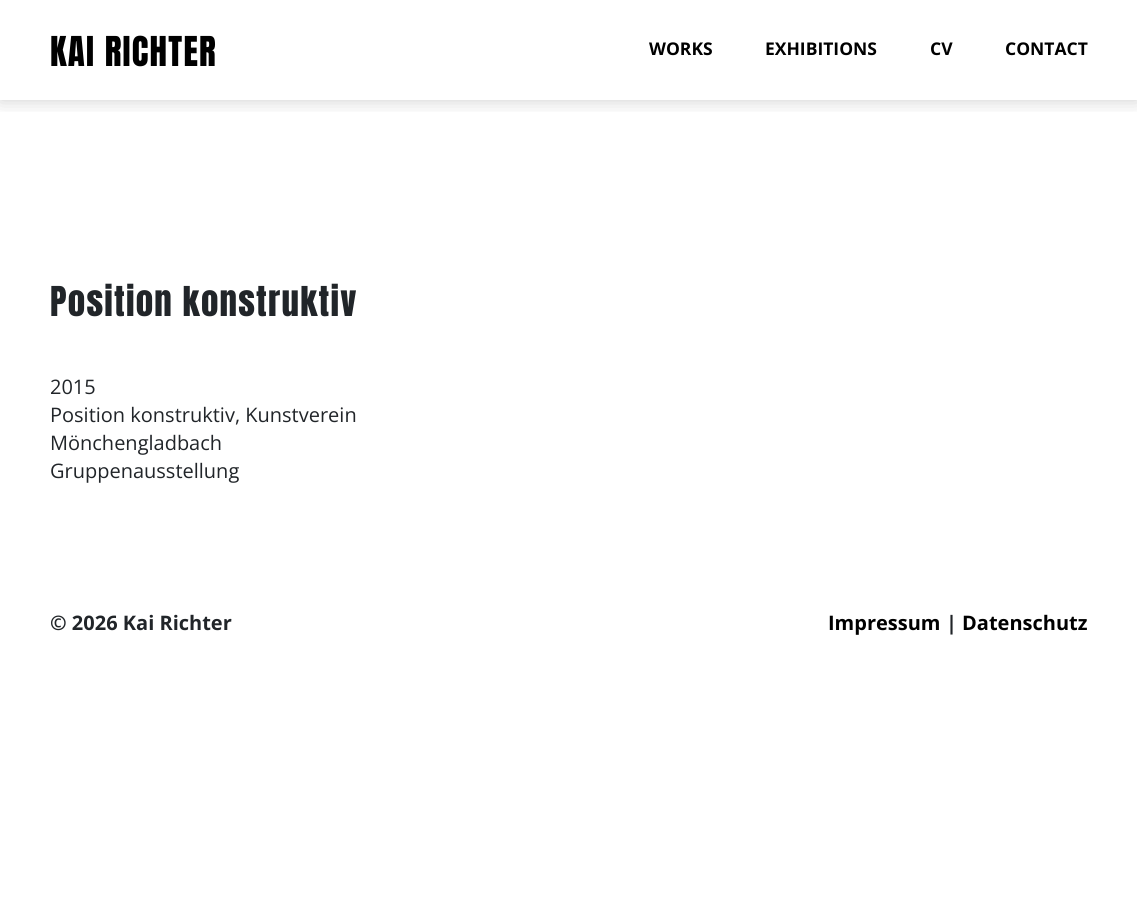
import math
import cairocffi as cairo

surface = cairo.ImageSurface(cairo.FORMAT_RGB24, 1137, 913)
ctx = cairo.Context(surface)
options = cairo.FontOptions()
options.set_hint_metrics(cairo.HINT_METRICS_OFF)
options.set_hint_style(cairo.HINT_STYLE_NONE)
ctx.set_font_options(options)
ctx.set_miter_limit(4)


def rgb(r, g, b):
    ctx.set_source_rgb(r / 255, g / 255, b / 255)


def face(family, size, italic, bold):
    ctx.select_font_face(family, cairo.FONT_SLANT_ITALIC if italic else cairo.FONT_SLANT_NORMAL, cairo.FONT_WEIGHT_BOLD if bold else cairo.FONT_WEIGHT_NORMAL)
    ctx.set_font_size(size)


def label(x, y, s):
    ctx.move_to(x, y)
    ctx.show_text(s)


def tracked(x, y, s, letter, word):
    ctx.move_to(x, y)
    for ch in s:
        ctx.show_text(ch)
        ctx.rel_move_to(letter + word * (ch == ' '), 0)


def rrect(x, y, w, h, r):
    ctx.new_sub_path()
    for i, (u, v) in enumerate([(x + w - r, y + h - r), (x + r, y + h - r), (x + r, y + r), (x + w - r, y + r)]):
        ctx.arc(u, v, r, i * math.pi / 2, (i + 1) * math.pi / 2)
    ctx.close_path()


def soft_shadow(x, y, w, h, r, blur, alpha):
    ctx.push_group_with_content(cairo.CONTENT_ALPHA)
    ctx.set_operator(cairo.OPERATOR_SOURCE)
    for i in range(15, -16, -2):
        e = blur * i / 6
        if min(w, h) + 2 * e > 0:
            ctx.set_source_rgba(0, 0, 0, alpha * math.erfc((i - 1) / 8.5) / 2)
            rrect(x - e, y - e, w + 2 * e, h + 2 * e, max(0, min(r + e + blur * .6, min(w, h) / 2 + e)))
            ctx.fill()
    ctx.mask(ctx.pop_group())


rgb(255, 255, 255)
ctx.paint()
ctx.save()
ctx.rectangle(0, 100, 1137, 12)
ctx.clip()
rgb(0, 0, 0)
soft_shadow(0, 0, 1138, 100, 0, 9.5, 0.2)
ctx.restore()
face('Anton', 35, 0, 0)
rgb(0, 0, 0)
tracked(50, 66, 'KAI RICHTER', 1.25, 0)
face('Open Sans', 17.5, 0, 1)
label(649, 55, 'WORKS')
label(765, 55, 'EXHIBITIONS')
label(930, 55, 'CV')
label(1005, 55, 'CONTACT')
face('Anton', 35, 0, 0)
rgb(33, 37, 41)
tracked(50, 316, 'Position konstruktiv', 1.25, 0)
face('Open Sans', 20, 0, 0)
label(50, 394, '2015')
label(50, 422, 'Position konstruktiv, Kunstverein')
label(50, 450, 'Mönchengladbach')
label(50, 478, 'Gruppenausstellung')
face('Open Sans', 20, 0, 1)
label(50, 630, '© 2026 Kai Richter')
rgb(0, 0, 0)
label(828, 630, 'Impressum')
rgb(33, 37, 41)
label(946, 630, '|')
rgb(0, 0, 0)
label(962, 630, 'Datenschutz')
surface.write_to_png('render.png')
